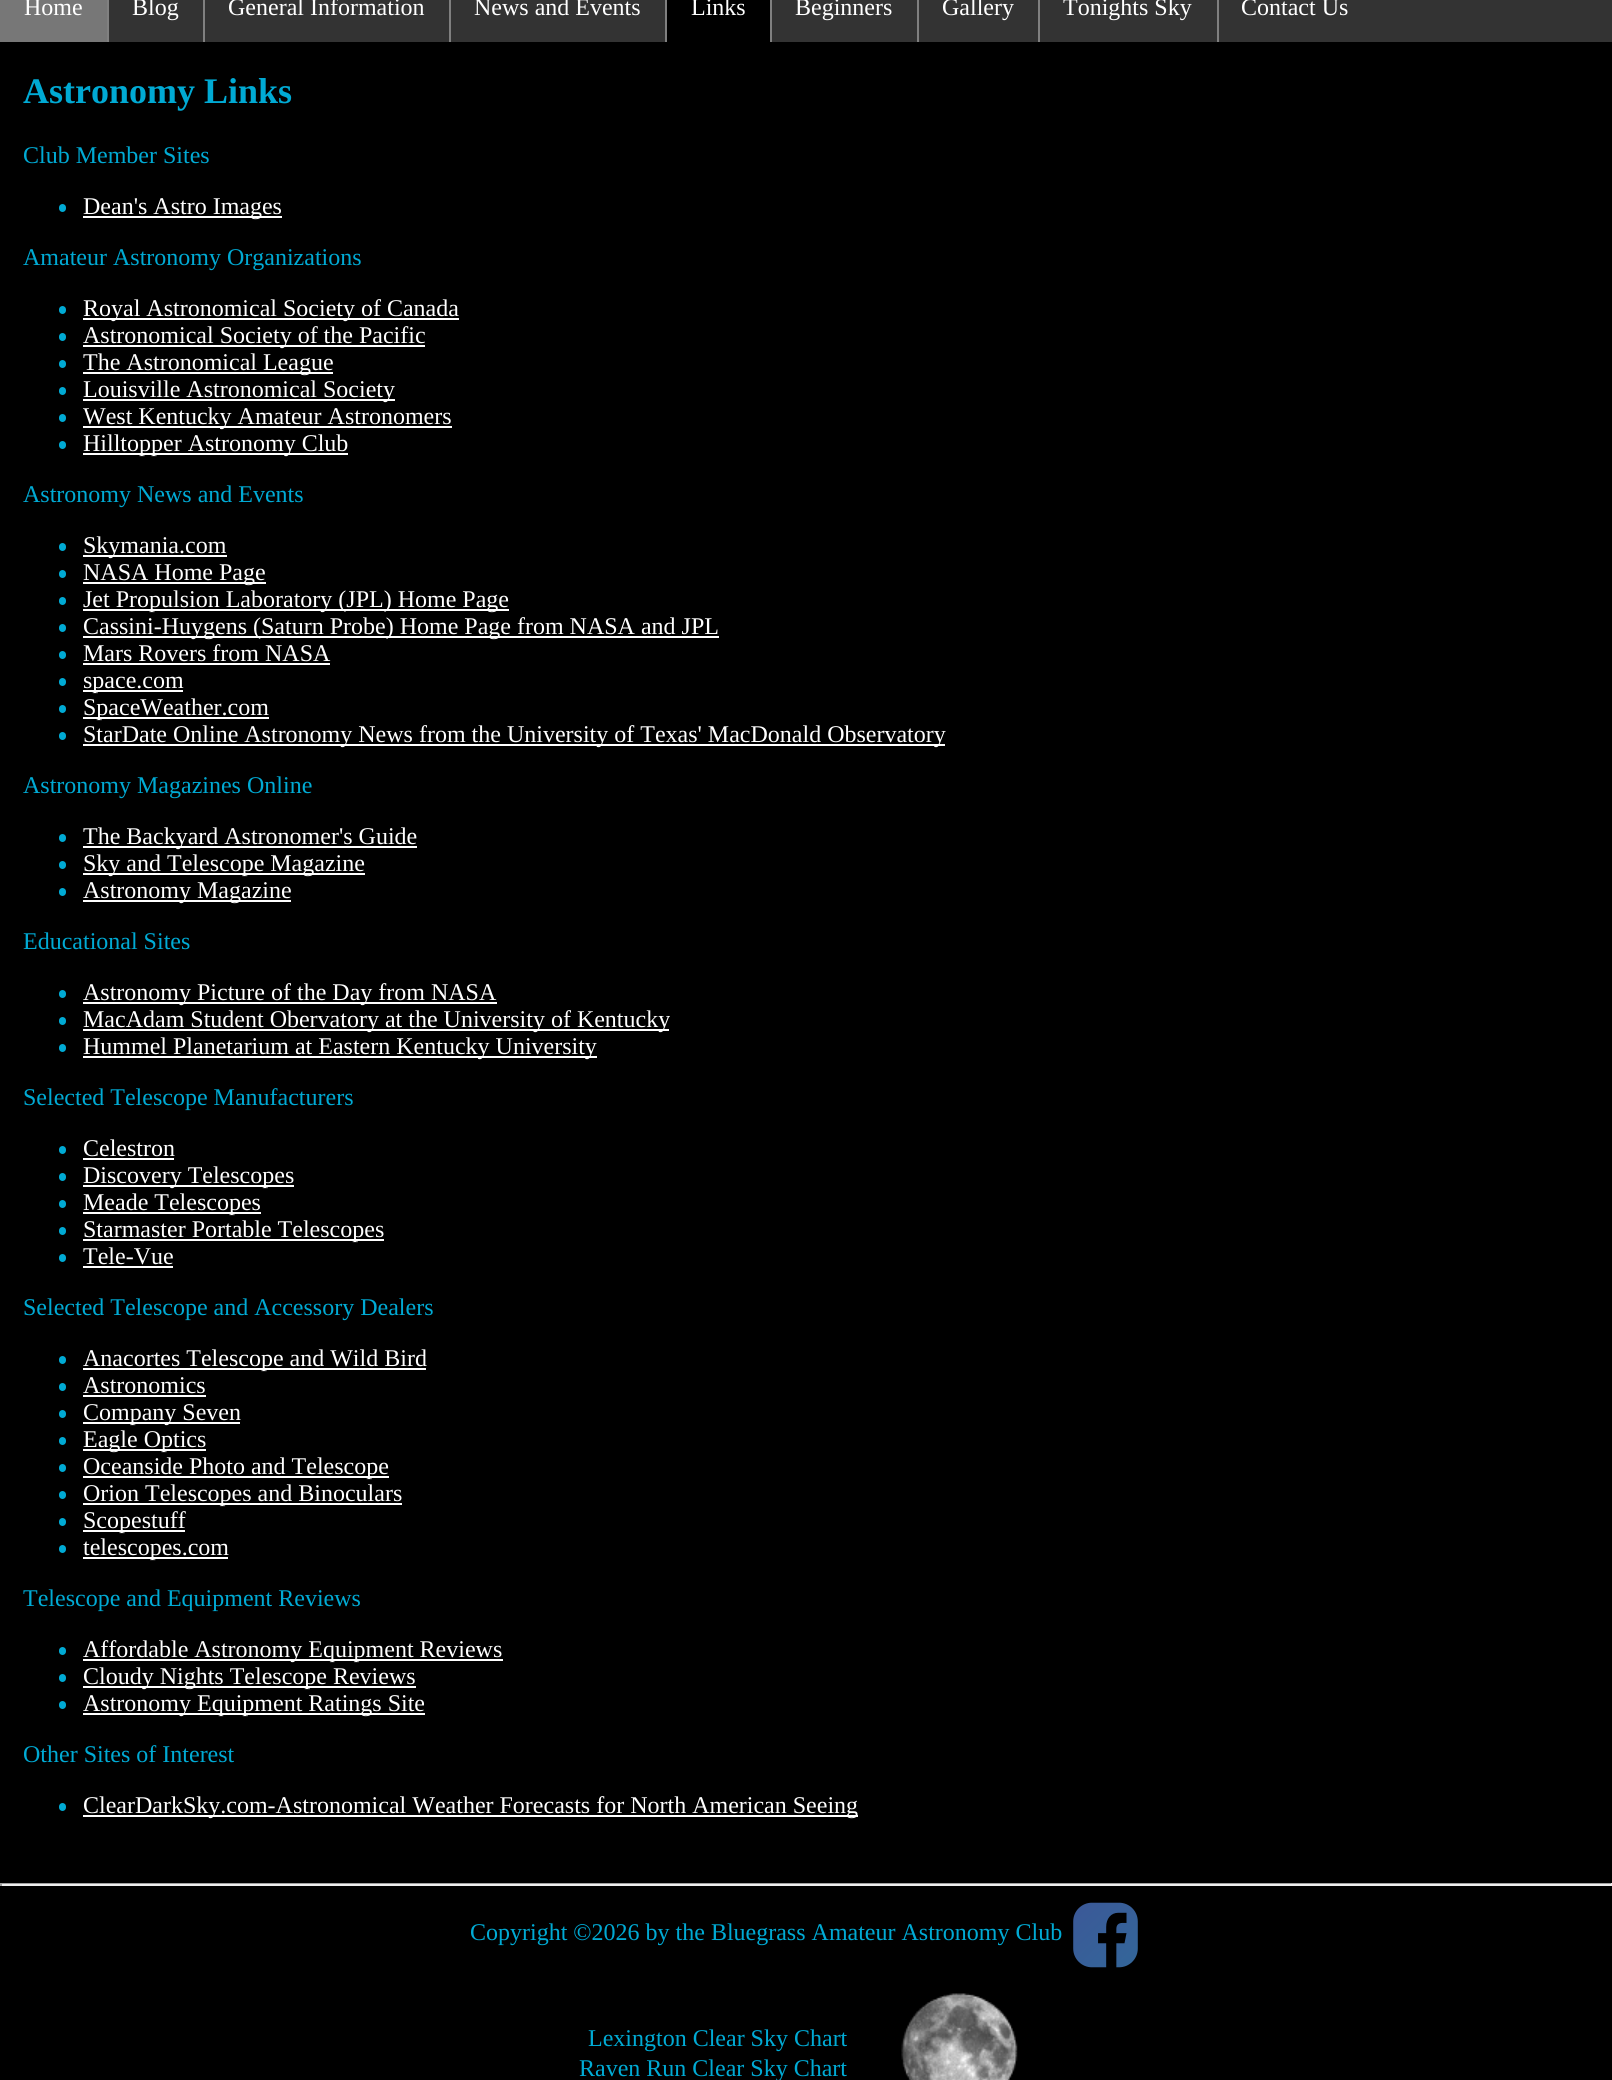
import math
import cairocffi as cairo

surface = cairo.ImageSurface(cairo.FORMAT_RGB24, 1612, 2080)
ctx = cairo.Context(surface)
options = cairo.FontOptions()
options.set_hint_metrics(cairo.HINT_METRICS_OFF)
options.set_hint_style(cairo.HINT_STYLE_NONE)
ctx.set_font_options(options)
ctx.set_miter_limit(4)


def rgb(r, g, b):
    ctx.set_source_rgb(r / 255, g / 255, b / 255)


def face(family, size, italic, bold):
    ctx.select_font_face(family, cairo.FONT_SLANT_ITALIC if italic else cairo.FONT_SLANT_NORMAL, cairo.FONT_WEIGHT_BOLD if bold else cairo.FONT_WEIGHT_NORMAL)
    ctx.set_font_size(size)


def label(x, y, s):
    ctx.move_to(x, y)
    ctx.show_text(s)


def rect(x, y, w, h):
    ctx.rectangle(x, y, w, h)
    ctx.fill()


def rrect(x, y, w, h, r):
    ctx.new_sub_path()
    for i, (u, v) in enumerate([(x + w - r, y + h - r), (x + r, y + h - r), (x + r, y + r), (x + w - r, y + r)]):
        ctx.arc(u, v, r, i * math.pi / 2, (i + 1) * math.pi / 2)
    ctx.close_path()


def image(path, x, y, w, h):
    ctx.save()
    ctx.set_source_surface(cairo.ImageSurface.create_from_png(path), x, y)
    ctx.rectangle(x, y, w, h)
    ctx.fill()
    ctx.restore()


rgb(0, 0, 0)
ctx.paint()
rgb(51, 51, 51)
rect(109, 0, 1503, 42)
rgb(119, 119, 119)
rect(0, 0, 107, 42)
face('Liberation Serif', 24, 0, 0)
rgb(255, 255, 255)
label(24, 15, 'Home')
rgb(128, 128, 128)
rect(107, 0, 2, 42)
rgb(255, 255, 255)
label(132, 15, 'Blog')
rgb(128, 128, 128)
rect(203, 0, 2, 42)
rgb(255, 255, 255)
label(228, 15, 'General Information')
rgb(128, 128, 128)
rect(449, 0, 2, 42)
rgb(255, 255, 255)
label(474, 15, 'News and Events')
rgb(0, 0, 0)
rect(667, 0, 103, 42)
rgb(128, 128, 128)
rect(665, 0, 2, 42)
rgb(255, 255, 255)
label(691, 15, 'Links')
rgb(128, 128, 128)
rect(770, 0, 2, 42)
rgb(255, 255, 255)
label(795, 15, 'Beginners')
rgb(128, 128, 128)
rect(917, 0, 2, 42)
rgb(255, 255, 255)
label(942, 15, 'Gallery')
rgb(128, 128, 128)
rect(1038, 0, 2, 42)
rgb(255, 255, 255)
label(1063, 15, 'Tonights Sky')
rgb(128, 128, 128)
rect(1217, 0, 2, 42)
rgb(255, 255, 255)
label(1241, 15, 'Contact Us')
face('Liberation Serif', 36, 0, 1)
rgb(0, 170, 212)
label(23, 103, 'Astronomy Links')
face('Liberation Serif', 24, 0, 0)
label(23, 163, 'Club Member Sites')
rrect(59, 204, 7, 8, 3.5)
ctx.fill()
rgb(255, 255, 255)
rect(83, 216, 199, 2)
label(83, 214, 'Dean\'s Astro Images')
rgb(0, 170, 212)
label(23, 265, 'Amateur Astronomy Organizations')
rrect(59, 306, 7, 8, 3.5)
ctx.fill()
rgb(255, 255, 255)
rect(83, 318, 376, 2)
label(83, 316, 'Royal Astronomical Society of Canada')
rgb(0, 170, 212)
rrect(59, 333, 7, 8, 3.5)
ctx.fill()
rgb(255, 255, 255)
rect(83, 345, 342, 2)
label(83, 343, 'Astronomical Society of the Pacific')
rgb(0, 170, 212)
rrect(59, 360, 7, 8, 3.5)
ctx.fill()
rgb(255, 255, 255)
rect(83, 372, 250, 2)
label(83, 370, 'The Astronomical League')
rgb(0, 170, 212)
rrect(59, 387, 7, 8, 3.5)
ctx.fill()
rgb(255, 255, 255)
rect(83, 399, 312, 2)
label(83, 397, 'Louisville Astronomical Society')
rgb(0, 170, 212)
rrect(59, 414, 7, 8, 3.5)
ctx.fill()
rgb(255, 255, 255)
rect(83, 426, 369, 2)
label(83, 424, 'West Kentucky Amateur Astronomers')
rgb(0, 170, 212)
rrect(59, 441, 7, 8, 3.5)
ctx.fill()
rgb(255, 255, 255)
rect(83, 453, 265, 2)
label(83, 451, 'Hilltopper Astronomy Club')
rgb(0, 170, 212)
label(23, 502, 'Astronomy News and Events')
rrect(59, 543, 7, 8, 3.5)
ctx.fill()
rgb(255, 255, 255)
rect(83, 555, 144, 2)
label(83, 553, 'Skymania.com')
rgb(0, 170, 212)
rrect(59, 570, 7, 8, 3.5)
ctx.fill()
rgb(255, 255, 255)
rect(83, 582, 183, 2)
label(83, 580, 'NASA Home Page')
rgb(0, 170, 212)
rrect(59, 597, 7, 8, 3.5)
ctx.fill()
rgb(255, 255, 255)
rect(83, 609, 426, 2)
label(83, 607, 'Jet Propulsion Laboratory (JPL) Home Page')
rgb(0, 170, 212)
rrect(59, 624, 7, 8, 3.5)
ctx.fill()
rgb(255, 255, 255)
rect(83, 636, 636, 2)
label(83, 634, 'Cassini-Huygens (Saturn Probe) Home Page from NASA and JPL')
rgb(0, 170, 212)
rrect(59, 651, 7, 8, 3.5)
ctx.fill()
rgb(255, 255, 255)
label(83, 661, 'Mars Rovers from NASA')
rect(83, 663, 247, 2)
rgb(0, 170, 212)
rrect(59, 678, 7, 8, 3.5)
ctx.fill()
rgb(255, 255, 255)
rect(83, 690, 100, 2)
label(83, 688, 'space.com')
rgb(0, 170, 212)
rrect(59, 705, 7, 8, 3.5)
ctx.fill()
rgb(255, 255, 255)
rect(83, 717, 186, 2)
label(83, 715, 'SpaceWeather.com')
rgb(0, 170, 212)
rrect(59, 732, 7, 8, 3.5)
ctx.fill()
rgb(255, 255, 255)
rect(83, 744, 862, 2)
label(83, 742, 'StarDate Online Astronomy News from the University of Texas\' MacDonald Observatory')
rgb(0, 170, 212)
label(23, 793, 'Astronomy Magazines Online')
rrect(59, 834, 7, 8, 3.5)
ctx.fill()
rgb(255, 255, 255)
rect(83, 846, 334, 2)
label(83, 844, 'The Backyard Astronomer\'s Guide')
rgb(0, 170, 212)
rrect(59, 861, 7, 8, 3.5)
ctx.fill()
rgb(255, 255, 255)
rect(83, 873, 282, 2)
label(83, 871, 'Sky and Telescope Magazine')
rgb(0, 170, 212)
rrect(59, 888, 7, 8, 3.5)
ctx.fill()
rgb(255, 255, 255)
rect(83, 900, 208, 2)
label(83, 898, 'Astronomy Magazine')
rgb(0, 170, 212)
label(23, 949, 'Educational Sites')
rrect(59, 990, 7, 8, 3.5)
ctx.fill()
rgb(255, 255, 255)
rect(83, 1002, 414, 2)
label(83, 1000, 'Astronomy Picture of the Day from NASA')
rgb(0, 170, 212)
rrect(59, 1017, 7, 8, 3.5)
ctx.fill()
rgb(255, 255, 255)
rect(83, 1029, 586, 2)
label(83, 1027, 'MacAdam Student Obervatory at the University of Kentucky')
rgb(0, 170, 212)
rrect(59, 1044, 7, 8, 3.5)
ctx.fill()
rgb(255, 255, 255)
rect(83, 1056, 514, 2)
label(83, 1054, 'Hummel Planetarium at Eastern Kentucky University')
rgb(0, 170, 212)
label(23, 1105, 'Selected Telescope Manufacturers')
rrect(59, 1146, 7, 8, 3.5)
ctx.fill()
rgb(255, 255, 255)
label(83, 1156, 'Celestron')
rect(83, 1158, 91, 2)
rgb(0, 170, 212)
rrect(59, 1173, 7, 8, 3.5)
ctx.fill()
rgb(255, 255, 255)
rect(83, 1185, 211, 2)
label(83, 1183, 'Discovery Telescopes')
rgb(0, 170, 212)
rrect(59, 1200, 7, 8, 3.5)
ctx.fill()
rgb(255, 255, 255)
rect(83, 1212, 178, 2)
label(83, 1210, 'Meade Telescopes')
rgb(0, 170, 212)
rrect(59, 1227, 7, 8, 3.5)
ctx.fill()
rgb(255, 255, 255)
rect(83, 1239, 301, 2)
label(83, 1237, 'Starmaster Portable Telescopes')
rgb(0, 170, 212)
rrect(59, 1254, 7, 8, 3.5)
ctx.fill()
rgb(255, 255, 255)
label(83, 1264, 'Tele-Vue')
rect(83, 1266, 90, 2)
rgb(0, 170, 212)
label(23, 1315, 'Selected Telescope and Accessory Dealers')
rrect(59, 1356, 7, 8, 3.5)
ctx.fill()
rgb(255, 255, 255)
rect(83, 1368, 343, 2)
label(83, 1366, 'Anacortes Telescope and Wild Bird')
rgb(0, 170, 212)
rrect(59, 1383, 7, 8, 3.5)
ctx.fill()
rgb(255, 255, 255)
label(83, 1393, 'Astronomics')
rect(83, 1395, 123, 2)
rgb(0, 170, 212)
rrect(59, 1410, 7, 8, 3.5)
ctx.fill()
rgb(255, 255, 255)
rect(83, 1422, 157, 2)
label(83, 1420, 'Company Seven')
rgb(0, 170, 212)
rrect(59, 1437, 7, 8, 3.5)
ctx.fill()
rgb(255, 255, 255)
rect(83, 1449, 123, 2)
label(83, 1447, 'Eagle Optics')
rgb(0, 170, 212)
rrect(59, 1464, 7, 8, 3.5)
ctx.fill()
rgb(255, 255, 255)
rect(83, 1476, 306, 2)
label(83, 1474, 'Oceanside Photo and Telescope')
rgb(0, 170, 212)
rrect(59, 1491, 7, 8, 3.5)
ctx.fill()
rgb(255, 255, 255)
rect(83, 1503, 319, 2)
label(83, 1501, 'Orion Telescopes and Binoculars')
rgb(0, 170, 212)
rrect(59, 1518, 7, 8, 3.5)
ctx.fill()
rgb(255, 255, 255)
rect(83, 1530, 102, 2)
label(83, 1528, 'Scopestuff')
rgb(0, 170, 212)
rrect(59, 1545, 7, 8, 3.5)
ctx.fill()
rgb(255, 255, 255)
rect(83, 1557, 145, 2)
label(83, 1555, 'telescopes.com')
rgb(0, 170, 212)
label(23, 1606, 'Telescope and Equipment Reviews')
rrect(59, 1647, 7, 8, 3.5)
ctx.fill()
rgb(255, 255, 255)
rect(83, 1659, 420, 2)
label(83, 1657, 'Affordable Astronomy Equipment Reviews')
rgb(0, 170, 212)
rrect(59, 1674, 7, 8, 3.5)
ctx.fill()
rgb(255, 255, 255)
rect(83, 1686, 333, 2)
label(83, 1684, 'Cloudy Nights Telescope Reviews')
rgb(0, 170, 212)
rrect(59, 1701, 7, 8, 3.5)
ctx.fill()
rgb(255, 255, 255)
rect(83, 1713, 342, 2)
label(83, 1711, 'Astronomy Equipment Ratings Site')
rgb(0, 170, 212)
label(23, 1762, 'Other Sites of Interest')
rrect(59, 1803, 7, 8, 3.5)
ctx.fill()
rgb(255, 255, 255)
rect(83, 1815, 775, 2)
label(83, 1813, 'ClearDarkSky.com-Astronomical Weather Forecasts for North American Seeing')
rgb(159, 159, 159)
rect(0, 1883, 1612, 1)
rgb(238, 238, 238)
rect(1611, 1883, 1, 3)
rect(0, 1884, 1612, 2)
rgb(159, 159, 159)
rect(0, 1883, 2, 3)
rgb(0, 170, 212)
label(470, 1940, 'Copyright ©2026 by the Bluegrass Amateur Astronomy Club')
image('image0.png', 1073, 1902, 65, 66)
label(588, 2046, 'Lexington Clear Sky Chart')
label(579, 2076, 'Raven Run Clear Sky Chart')
image('image1.png', 901, 1993, 117, 87)
surface.write_to_png('render.png')
